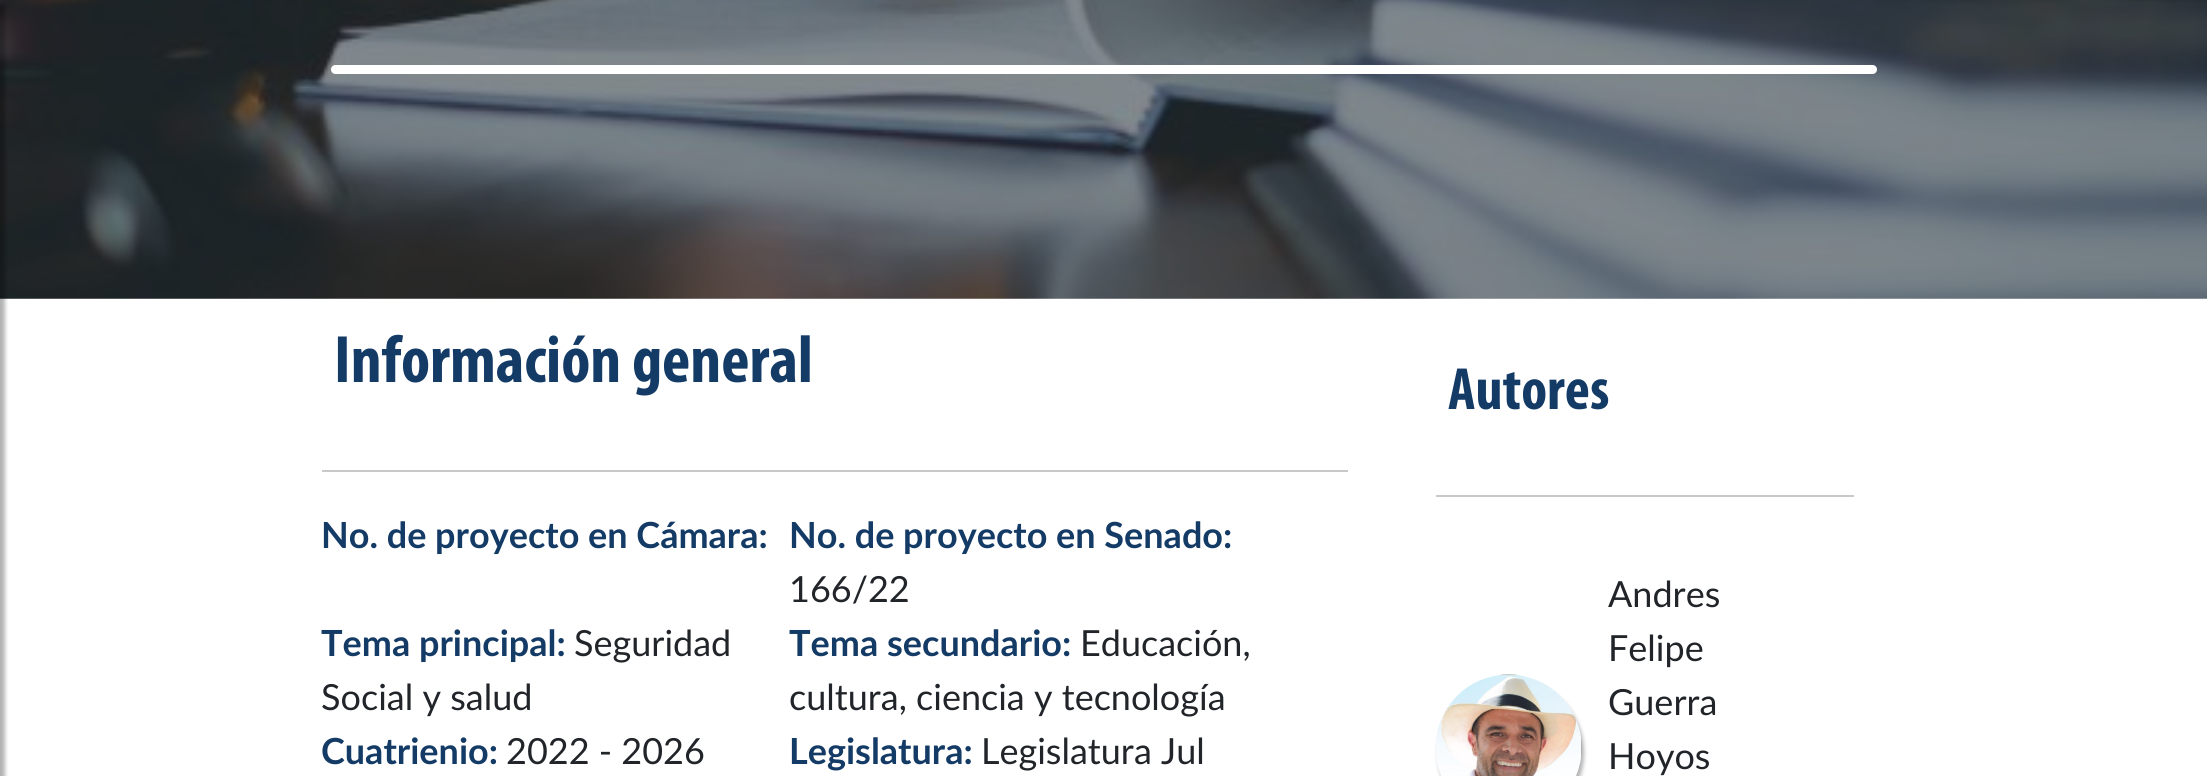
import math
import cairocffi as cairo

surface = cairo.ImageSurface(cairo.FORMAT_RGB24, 2207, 776)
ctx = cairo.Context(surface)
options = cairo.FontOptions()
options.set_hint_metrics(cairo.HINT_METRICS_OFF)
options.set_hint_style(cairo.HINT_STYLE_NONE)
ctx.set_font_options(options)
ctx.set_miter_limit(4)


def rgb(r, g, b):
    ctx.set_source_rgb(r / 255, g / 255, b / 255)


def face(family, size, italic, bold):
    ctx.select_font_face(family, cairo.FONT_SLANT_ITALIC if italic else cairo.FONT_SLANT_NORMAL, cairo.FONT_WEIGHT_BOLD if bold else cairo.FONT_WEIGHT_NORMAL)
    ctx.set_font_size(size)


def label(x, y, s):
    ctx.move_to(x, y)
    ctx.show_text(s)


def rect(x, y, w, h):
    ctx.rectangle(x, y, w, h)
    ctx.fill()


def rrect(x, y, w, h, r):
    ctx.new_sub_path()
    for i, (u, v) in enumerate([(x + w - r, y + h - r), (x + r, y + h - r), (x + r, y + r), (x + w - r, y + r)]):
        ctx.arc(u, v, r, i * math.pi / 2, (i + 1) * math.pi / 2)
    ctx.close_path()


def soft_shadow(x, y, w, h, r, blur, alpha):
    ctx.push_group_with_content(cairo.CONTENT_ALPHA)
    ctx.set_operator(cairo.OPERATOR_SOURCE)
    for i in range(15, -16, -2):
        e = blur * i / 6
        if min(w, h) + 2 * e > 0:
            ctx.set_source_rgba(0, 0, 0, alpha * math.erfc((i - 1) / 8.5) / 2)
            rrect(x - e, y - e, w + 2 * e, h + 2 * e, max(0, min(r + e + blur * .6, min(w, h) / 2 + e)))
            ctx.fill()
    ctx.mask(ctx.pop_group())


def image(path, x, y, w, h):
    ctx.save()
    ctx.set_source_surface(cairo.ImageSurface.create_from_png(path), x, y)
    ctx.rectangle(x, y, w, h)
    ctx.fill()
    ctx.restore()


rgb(255, 255, 255)
ctx.paint()
image('image0.png', 0, 0, 2207, 299)
rgb(0, 0, 0)
soft_shadow(-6, 5, 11, 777, 0, 2, 0.3)
rgb(255, 255, 255)
rrect(331, 65, 1546, 9, 4.5)
ctx.fill()
face('Myriad', 67.5, 0, 1)
rgb(20, 59, 102)
label(334, 382, 'Información general')
rgb(200, 201, 202)
rect(322, 470, 1026, 2)
face('Lato', 36, 0, 1)
rgb(20, 59, 102)
label(321, 548, 'No. de proyecto en Cámara:')
label(789, 548, 'No. de proyecto en Senado:')
face('Lato', 36, 0, 0)
rgb(33, 37, 41)
label(789, 602, '166/22')
face('Lato', 36, 0, 1)
rgb(20, 59, 102)
label(321, 656, 'Tema principal:')
face('Lato', 36, 0, 0)
rgb(33, 37, 41)
label(574, 656, 'Seguridad')
label(321, 710, 'Social y salud')
face('Lato', 36, 0, 1)
rgb(20, 59, 102)
label(789, 656, 'Tema secundario:')
face('Lato', 36, 0, 0)
rgb(33, 37, 41)
label(1080, 656, 'Educación,')
label(789, 710, 'cultura, ciencia y tecnología')
face('Lato', 36, 0, 1)
rgb(20, 59, 102)
label(321, 764, 'Cuatrienio:')
face('Lato', 36, 0, 0)
rgb(33, 37, 41)
label(506, 764, '2022 - 2026')
face('Lato', 36, 0, 1)
rgb(20, 59, 102)
label(789, 764, 'Legislatura:')
face('Lato', 36, 0, 0)
rgb(33, 37, 41)
label(981, 764, 'Legislatura Jul')
face('Myriad', 60, 0, 1)
rgb(20, 59, 102)
label(1448, 409, 'Autores')
rgb(200, 201, 202)
rect(1436, 495, 418, 2)
rgb(0, 0, 0)
soft_shadow(1438, 680, 146, 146, 73, 2, 0.3)
image('image1.png', 1436, 674, 146, 102)
face('Lato', 36, 0, 0)
rgb(33, 37, 41)
label(1608, 607, 'Andres')
label(1608, 661, 'Felipe')
label(1608, 715, 'Guerra')
label(1608, 769, 'Hoyos')
surface.write_to_png('render.png')
